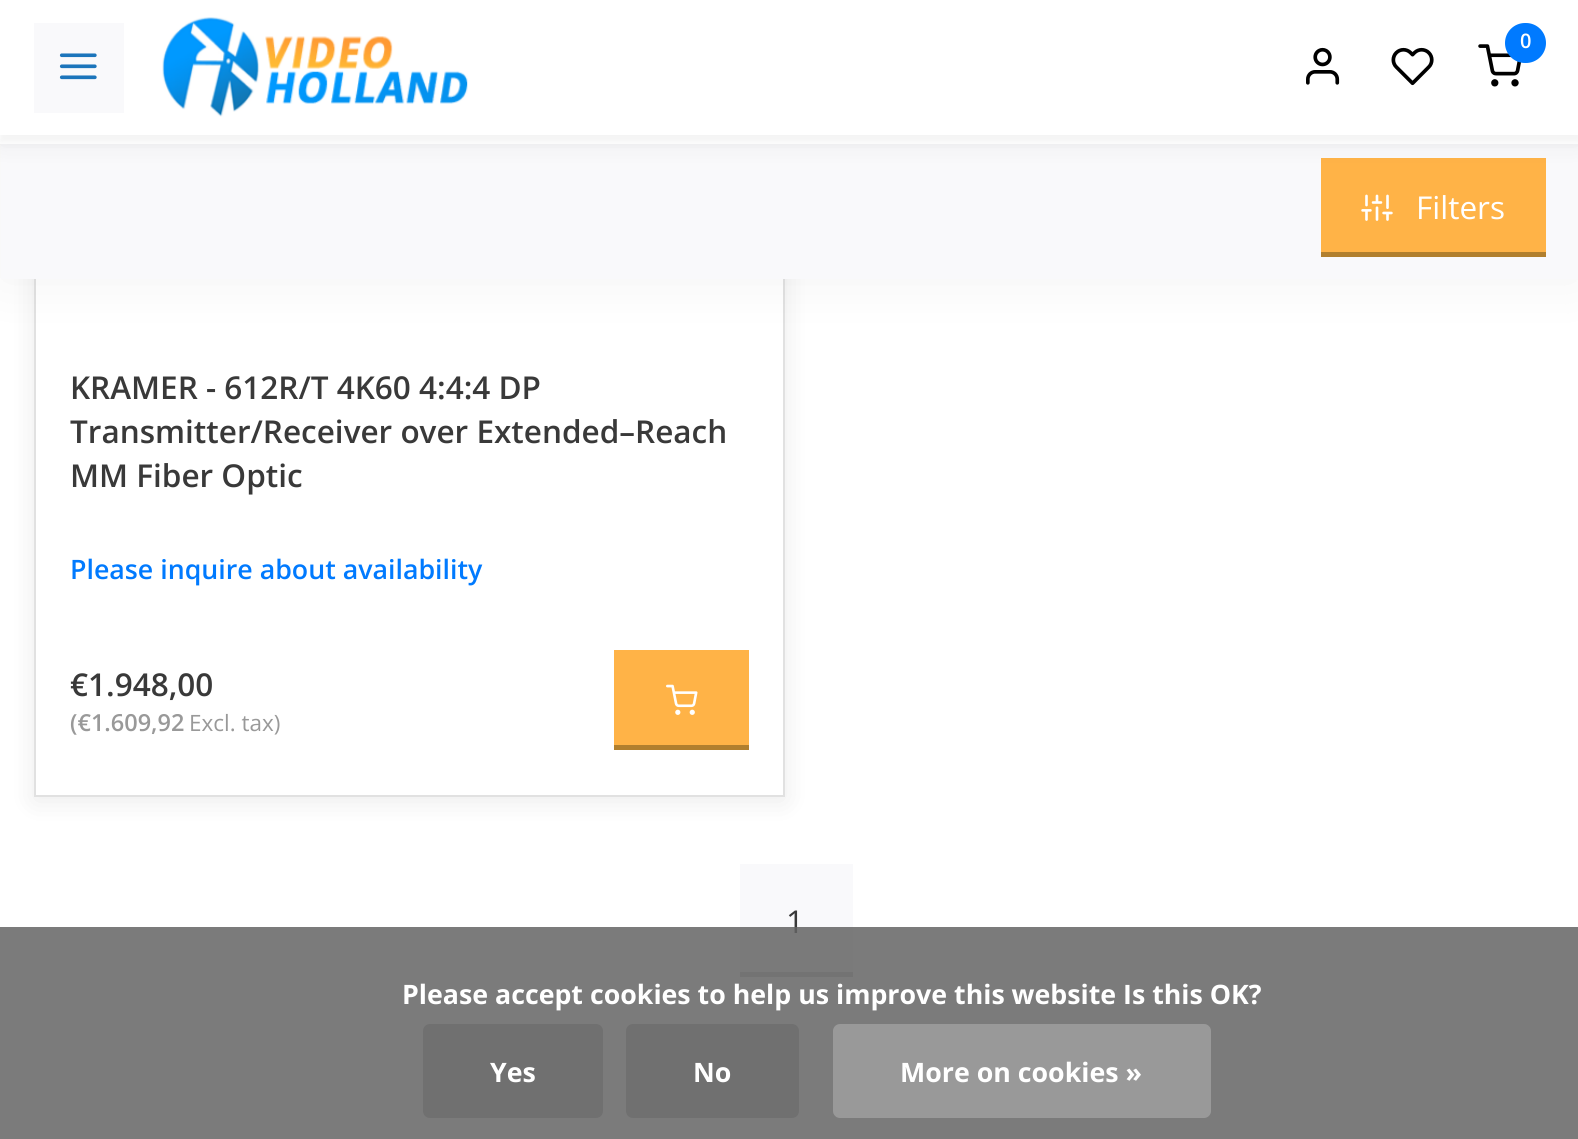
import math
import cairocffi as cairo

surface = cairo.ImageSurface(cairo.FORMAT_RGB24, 1578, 1139)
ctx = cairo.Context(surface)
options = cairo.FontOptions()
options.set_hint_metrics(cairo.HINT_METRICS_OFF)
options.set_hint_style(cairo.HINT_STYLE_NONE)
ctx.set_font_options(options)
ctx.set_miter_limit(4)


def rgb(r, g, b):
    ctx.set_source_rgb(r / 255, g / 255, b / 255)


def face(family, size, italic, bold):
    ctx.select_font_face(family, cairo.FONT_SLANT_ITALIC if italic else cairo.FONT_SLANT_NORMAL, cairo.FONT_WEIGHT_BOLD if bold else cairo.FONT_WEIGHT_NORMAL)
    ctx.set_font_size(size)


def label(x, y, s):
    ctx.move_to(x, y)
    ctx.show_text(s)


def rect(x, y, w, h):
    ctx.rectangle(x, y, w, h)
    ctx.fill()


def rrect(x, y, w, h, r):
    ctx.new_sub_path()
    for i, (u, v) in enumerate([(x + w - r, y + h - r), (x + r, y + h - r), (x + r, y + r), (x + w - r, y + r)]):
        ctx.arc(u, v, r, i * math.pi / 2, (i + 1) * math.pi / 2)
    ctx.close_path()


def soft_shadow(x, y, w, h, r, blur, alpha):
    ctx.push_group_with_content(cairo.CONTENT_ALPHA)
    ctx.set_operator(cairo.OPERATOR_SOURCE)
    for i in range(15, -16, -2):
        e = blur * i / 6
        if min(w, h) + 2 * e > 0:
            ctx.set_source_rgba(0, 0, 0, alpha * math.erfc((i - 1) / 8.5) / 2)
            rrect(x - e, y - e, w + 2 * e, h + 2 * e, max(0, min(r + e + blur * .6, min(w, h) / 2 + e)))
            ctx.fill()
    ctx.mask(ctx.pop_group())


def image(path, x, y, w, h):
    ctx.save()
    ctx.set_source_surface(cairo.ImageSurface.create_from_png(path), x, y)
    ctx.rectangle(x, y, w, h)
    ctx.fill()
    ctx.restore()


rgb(255, 255, 255)
ctx.paint()
rgb(0, 0, 0)
soft_shadow(34, -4, 751, 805, 0, 13.5, 0.08)
rgb(255, 255, 255)
rect(36, 279, 747, 516)
ctx.rectangle(35, -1, 749, 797)
rgb(225, 225, 225)
ctx.stroke()
rgb(0, 0, 0)
soft_shadow(0, 137, 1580, 144, 0, 28, 0.05)
rgb(249, 249, 251)
rect(1, 144, 1577, 135)
rgb(255, 179, 71)
rect(1321, 158, 225, 94)
rgb(0, 0, 0)
soft_shadow(0, 11, 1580, 135, 0, 11, 0.05)
rgb(255, 255, 255)
rect(0, 135, 1578, 9)
rgb(0, 0, 0)
soft_shadow(0, 7, 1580, 135, 0, 4.5, 0.05)
rgb(255, 255, 255)
rect(0, 0, 1578, 135)
rgb(249, 249, 251)
rect(34, 23, 90, 90)
image('image0.png', 59, 53, 38, 27)
image('image1.png', 162, 17, 306, 100)
image('image2.png', 1478, 44, 44, 43)
rgb(0, 122, 255)
rrect(1505, 23, 41, 40, 20)
ctx.fill()
face('Open Sans SemiBold', 20, 0, 0)
rgb(255, 255, 255)
label(1520, 48, '0')
image('image3.png', 1306, 47, 34, 38)
image('image4.png', 1391, 47, 43, 39)
rgb(177, 127, 46)
rect(1321, 252, 225, 5)
image('image5.png', 1361, 194, 32, 27)
face('Open Sans', 31.5, 0, 0)
rgb(255, 255, 255)
label(1416, 219, 'Filters')
face('Open Sans SemiBold', 31.5, 0, 0)
rgb(57, 57, 57)
label(70, 399, 'KRAMER - 612R/T 4K60 4:4:4 DP')
label(70, 443, 'Transmitter/Receiver over Extended–Reach')
label(70, 487, 'MM Fiber Optic')
face('Open Sans SemiBold', 26.75, 0, 0)
rgb(0, 122, 255)
label(70, 579, 'Please inquire about availability')
face('Open Sans SemiBold', 31.5, 0, 0)
rgb(57, 57, 57)
label(70, 696, '€1.948,00')
face('Open Sans SemiBold', 23.5, 0, 0)
rgb(153, 153, 153)
label(70, 731, '(€1.609,92')
face('Open Sans', 22.5, 0, 0)
label(189, 731, 'Excl. tax)')
rgb(255, 179, 71)
rect(614, 650, 135, 95)
rgb(177, 127, 46)
rect(614, 745, 135, 5)
image('image6.png', 666, 684, 32, 31)
rgb(249, 249, 251)
rect(740, 864, 113, 108)
rgb(201, 201, 203)
rect(740, 972, 113, 5)
face('Open Sans', 31.5, 0, 0)
rgb(57, 57, 57)
label(786, 933, '1')
ctx.set_source_rgba(0.392, 0.392, 0.392, 0.85)
rect(0, 927, 1578, 212)
face('Open Sans', 26.75, 0, 1)
rgb(255, 255, 255)
label(402, 1004, 'Please accept cookies to help us improve this website Is this OK?')
rgb(112, 112, 112)
rrect(423, 1024, 180, 94, 7)
ctx.fill()
rgb(255, 255, 255)
label(490, 1082, 'Yes')
rgb(112, 112, 112)
rrect(626, 1024, 173, 94, 7)
ctx.fill()
rgb(255, 255, 255)
label(693, 1082, 'No')
rgb(153, 153, 153)
rrect(833, 1024, 378, 94, 7)
ctx.fill()
rgb(255, 255, 255)
label(900, 1082, 'More on cookies »')
surface.write_to_png('render.png')
